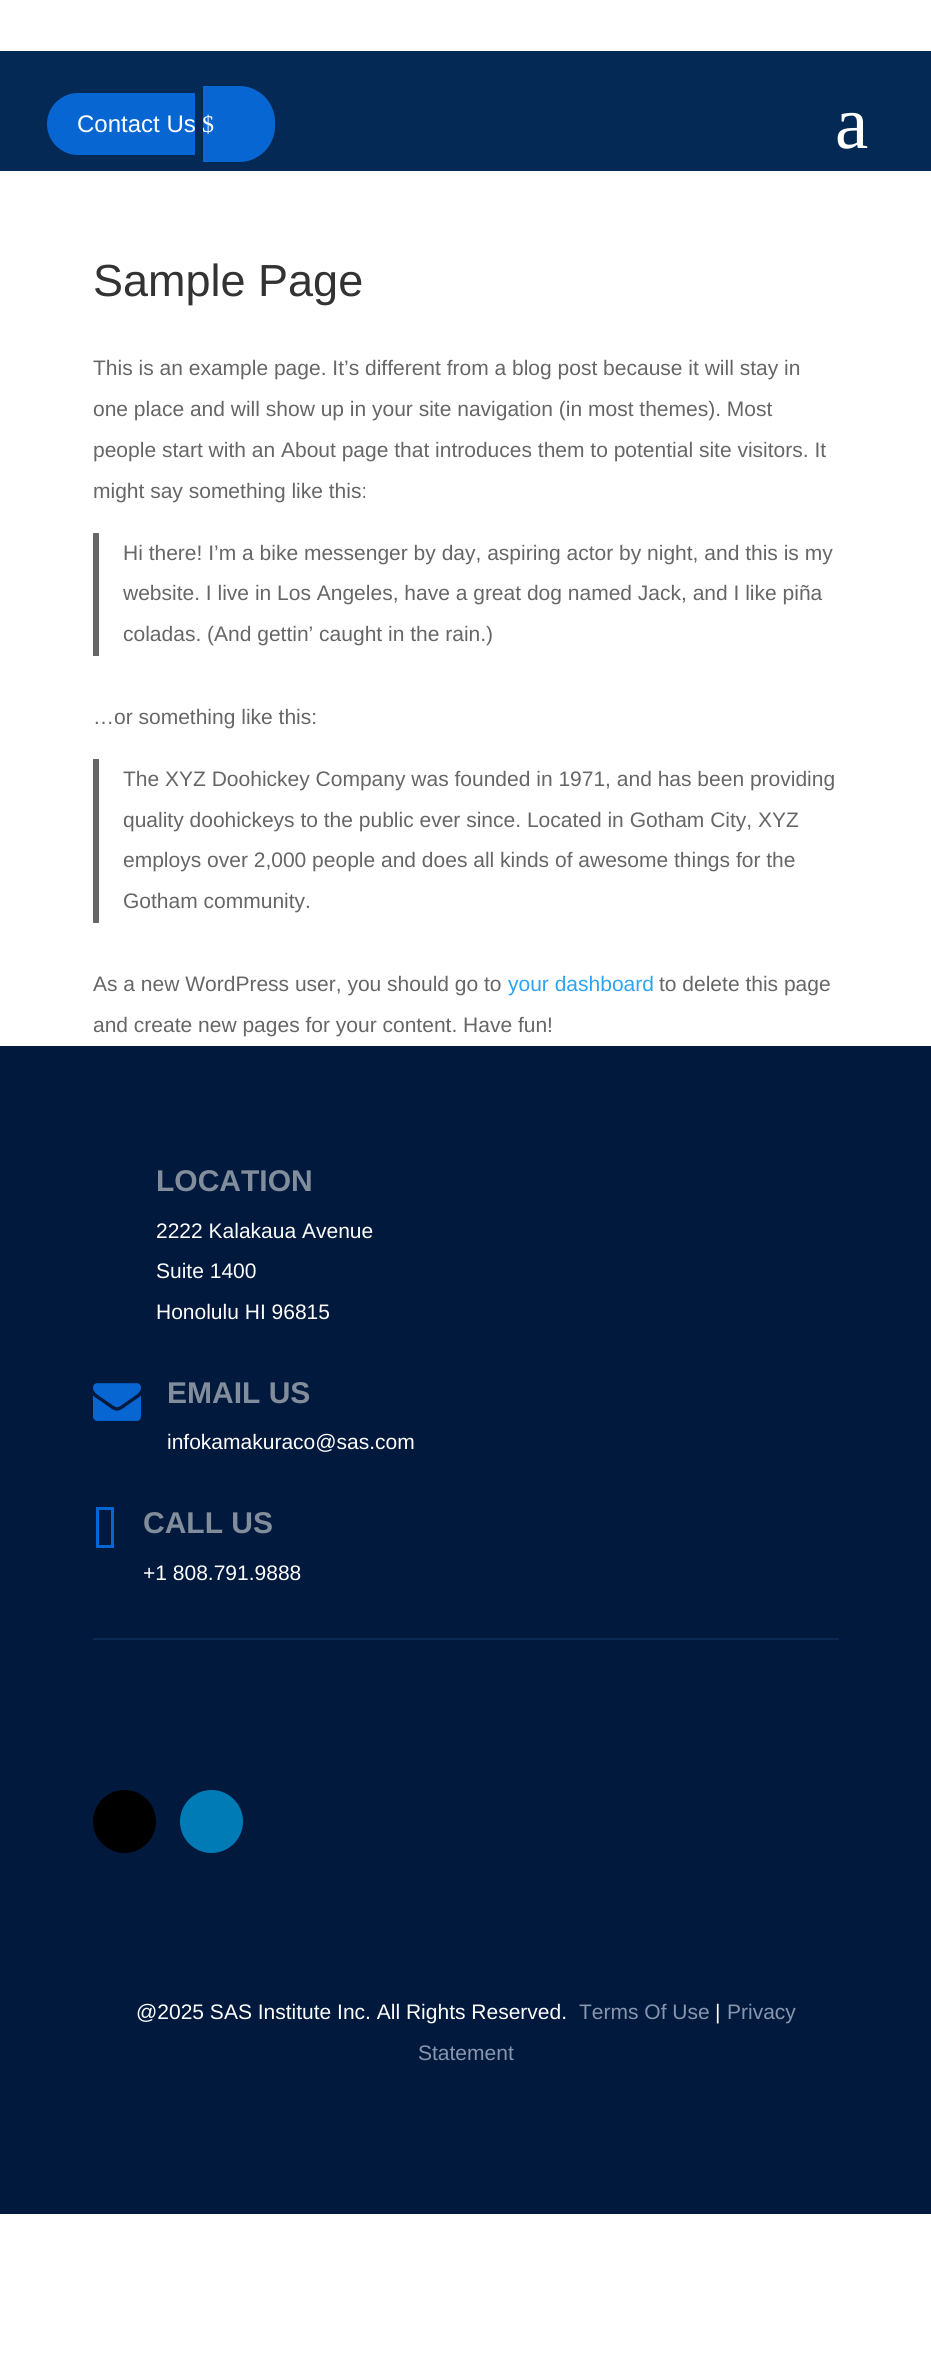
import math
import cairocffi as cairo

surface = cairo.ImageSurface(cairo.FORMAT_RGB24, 931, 2363)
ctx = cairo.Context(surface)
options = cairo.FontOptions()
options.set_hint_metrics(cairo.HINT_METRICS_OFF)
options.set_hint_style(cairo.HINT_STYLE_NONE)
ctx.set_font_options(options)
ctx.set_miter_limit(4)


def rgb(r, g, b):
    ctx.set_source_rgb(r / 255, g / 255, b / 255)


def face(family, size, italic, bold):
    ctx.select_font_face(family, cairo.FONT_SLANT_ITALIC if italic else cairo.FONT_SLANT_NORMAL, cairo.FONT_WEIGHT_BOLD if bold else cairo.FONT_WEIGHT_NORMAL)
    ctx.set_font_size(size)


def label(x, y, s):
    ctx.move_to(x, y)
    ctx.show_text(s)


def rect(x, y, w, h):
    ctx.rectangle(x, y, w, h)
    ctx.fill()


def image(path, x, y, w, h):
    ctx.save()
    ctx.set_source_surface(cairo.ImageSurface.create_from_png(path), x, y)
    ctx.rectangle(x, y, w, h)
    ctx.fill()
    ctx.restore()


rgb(255, 255, 255)
ctx.paint()
rgb(3, 41, 84)
rect(0, 51, 931, 120)
rgb(7, 102, 209)
ctx.new_path()
ctx.move_to(78, 93)
ctx.line_to(195, 93)
ctx.line_to(195, 155)
ctx.line_to(78, 155)
ctx.curve_to(61, 155, 47, 141, 47, 124)
ctx.curve_to(47, 107, 61, 93, 78, 93)
ctx.close_path()
ctx.fill()
ctx.new_path()
ctx.move_to(203, 86)
ctx.line_to(239, 86)
ctx.curve_to(259, 86, 275, 102, 275, 122)
ctx.line_to(275, 126)
ctx.curve_to(275, 146, 259, 162, 239, 162)
ctx.line_to(203, 162)
ctx.close_path()
ctx.fill()
face('Liberation Sans', 24, 0, 0)
rgb(255, 255, 255)
label(77, 132, 'Contact Us')
face('Liberation Serif', 24, 0, 0)
label(202, 132, '$')
face('Liberation Serif', 75, 0, 0)
label(835, 148, 'a')
face('Liberation Sans', 45, 0, 0)
rgb(51, 51, 51)
label(93, 296, 'Sample Page')
face('Liberation Sans', 21, 0, 0)
rgb(102, 102, 102)
label(93, 375, 'This is an example page. It’s different from a blog post because it will stay in')
label(93, 416, 'one place and will show up in your site navigation (in most themes). Most')
label(93, 457, 'people start with an About page that introduces them to potential site visitors. It')
label(93, 498, 'might say something like this:')
rect(93, 533, 6, 123)
label(123, 560, 'Hi there! I’m a bike messenger by day, aspiring actor by night, and this is my')
label(123, 600, 'website. I live in Los Angeles, have a great dog named Jack, and I like piña')
label(123, 641, 'coladas. (And gettin’ caught in the rain.)')
label(93, 724, '…or something like this:')
rect(93, 759, 6, 164)
label(123, 786, 'The XYZ Doohickey Company was founded in 1971, and has been providing')
label(123, 827, 'quality doohickeys to the public ever since. Located in Gotham City, XYZ')
label(123, 867, 'employs over 2,000 people and does all kinds of awesome things for the')
label(123, 908, 'Gotham community.')
label(93, 991, 'As a new WordPress user, you should go to')
rgb(46, 163, 242)
label(508, 991, 'your dashboard')
rgb(102, 102, 102)
label(659, 991, 'to delete this page')
label(93, 1032, 'and create new pages for your content. Have fun!')
rgb(1, 25, 61)
rect(0, 1046, 931, 1168)
rgb(11, 40, 82)
rect(93, 1638, 746, 2)
face('Liberation Sans', 30, 0, 1)
rgb(130, 141, 156)
label(156, 1191, 'LOCATION')
face('Liberation Sans', 21, 0, 0)
rgb(255, 255, 255)
label(156, 1238, '2222 Kalakaua Avenue')
label(156, 1278, 'Suite 1400')
label(156, 1319, 'Honolulu HI 96815')
image('image0.png', 93, 1383, 48, 38)
face('Liberation Sans', 30, 0, 1)
rgb(130, 141, 156)
label(167, 1403, 'EMAIL US')
face('Liberation Sans', 21, 0, 0)
rgb(255, 255, 255)
label(167, 1449, 'infokamakuraco@sas.com')
rgb(7, 102, 209)
ctx.new_path()
ctx.move_to(99, 1545)
ctx.line_to(99, 1510)
ctx.line_to(111, 1510)
ctx.line_to(111, 1545)
ctx.close_path()
ctx.move_to(96, 1548)
ctx.line_to(114, 1548)
ctx.line_to(114, 1507)
ctx.line_to(96, 1507)
ctx.close_path()
ctx.fill()
face('Liberation Sans', 30, 0, 1)
rgb(130, 141, 156)
label(143, 1533, 'CALL US')
face('Liberation Sans', 21, 0, 0)
rgb(255, 255, 255)
label(143, 1580, '+1 808.791.9888')
rgb(0, 0, 0)
ctx.new_path()
ctx.arc(124.5, 1821.5, 31.5, 0, 2 * math.pi)
ctx.fill()
rgb(0, 123, 182)
ctx.arc(211.5, 1821.5, 31.5, 0, 2 * math.pi)
ctx.fill()
rgb(255, 255, 255)
label(136, 2019, '@2025 SAS Institute Inc. All Rights Reserved.')
rgb(135, 150, 173)
label(579, 2019, 'Terms Of Use')
rgb(255, 255, 255)
label(715, 2019, '|')
rgb(135, 150, 173)
label(727, 2019, 'Privacy')
label(418, 2060, 'Statement')
surface.write_to_png('render.png')
